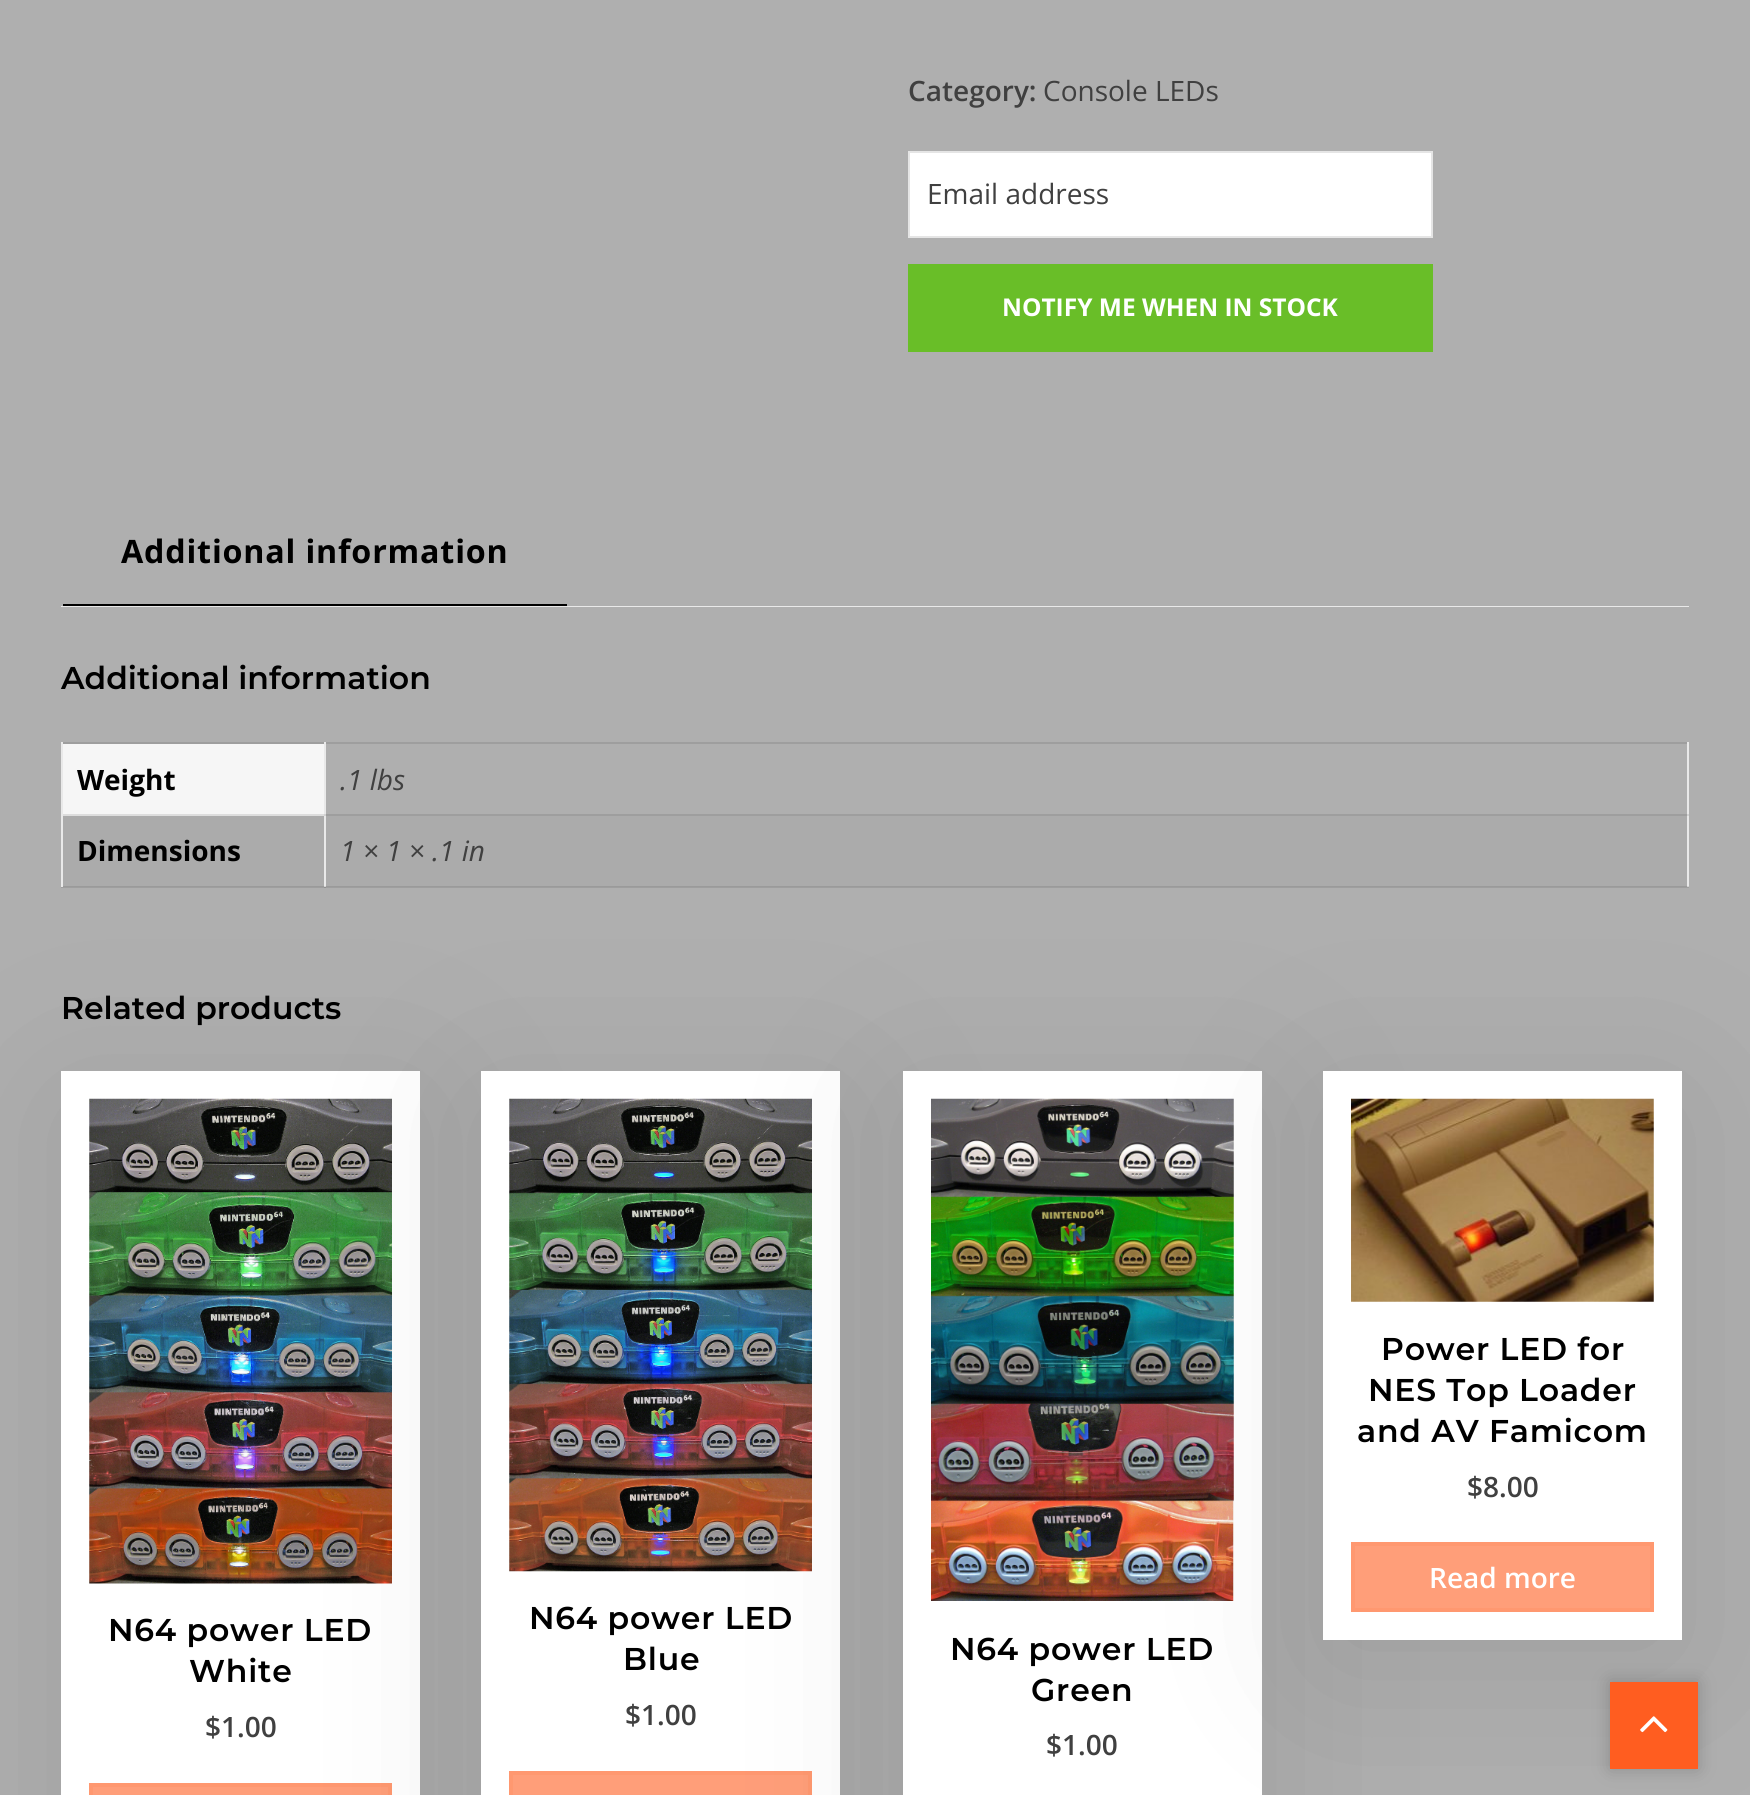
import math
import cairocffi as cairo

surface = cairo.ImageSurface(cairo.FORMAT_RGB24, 1750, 1795)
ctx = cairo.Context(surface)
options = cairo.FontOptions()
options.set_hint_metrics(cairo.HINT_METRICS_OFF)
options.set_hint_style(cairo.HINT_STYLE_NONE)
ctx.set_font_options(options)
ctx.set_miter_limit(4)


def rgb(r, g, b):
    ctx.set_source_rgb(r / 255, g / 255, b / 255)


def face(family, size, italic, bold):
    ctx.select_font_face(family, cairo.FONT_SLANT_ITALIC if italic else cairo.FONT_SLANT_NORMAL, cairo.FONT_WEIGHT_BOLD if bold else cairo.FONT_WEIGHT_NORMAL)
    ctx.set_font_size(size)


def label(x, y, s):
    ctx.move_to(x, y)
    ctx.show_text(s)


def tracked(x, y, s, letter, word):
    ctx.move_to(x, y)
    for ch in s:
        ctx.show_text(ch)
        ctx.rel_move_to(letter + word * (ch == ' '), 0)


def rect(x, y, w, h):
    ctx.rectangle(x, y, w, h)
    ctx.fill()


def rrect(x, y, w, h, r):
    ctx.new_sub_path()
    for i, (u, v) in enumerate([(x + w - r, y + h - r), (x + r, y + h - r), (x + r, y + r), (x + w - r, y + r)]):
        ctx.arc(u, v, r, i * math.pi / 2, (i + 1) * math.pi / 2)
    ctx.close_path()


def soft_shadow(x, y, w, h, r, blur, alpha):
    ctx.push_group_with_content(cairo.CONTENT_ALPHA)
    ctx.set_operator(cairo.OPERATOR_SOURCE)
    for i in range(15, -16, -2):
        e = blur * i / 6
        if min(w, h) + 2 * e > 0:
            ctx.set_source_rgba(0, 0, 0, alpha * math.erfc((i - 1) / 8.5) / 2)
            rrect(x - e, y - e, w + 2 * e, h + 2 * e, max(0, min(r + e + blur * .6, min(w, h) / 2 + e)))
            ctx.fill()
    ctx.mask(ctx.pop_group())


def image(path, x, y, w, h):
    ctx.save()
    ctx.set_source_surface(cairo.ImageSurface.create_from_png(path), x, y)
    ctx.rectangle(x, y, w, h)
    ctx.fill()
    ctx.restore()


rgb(175, 175, 175)
ctx.paint()
rgb(158, 158, 158)
rect(324, 814, 1365, 2)
rect(61, 887, 1628, 1)
rgb(142, 142, 142)
rect(324, 887, 2, 1)
face('Open Sans SemiBold', 28, 0, 0)
rgb(64, 64, 64)
label(908, 101, 'Category:')
face('Open Sans', 28, 0, 0)
label(1043, 101, 'Console LEDs')
rgb(255, 255, 255)
ctx.rectangle(909, 152, 523, 85)
ctx.fill_preserve()
rgb(229, 229, 229)
ctx.stroke()
rgb(64, 64, 64)
label(927, 204, 'Email address')
rgb(105, 190, 40)
rect(908, 264, 525, 88)
face('Open Sans', 24.5, 0, 1)
rgb(255, 255, 255)
label(1002, 316, 'NOTIFY ME WHEN IN STOCK')
face('Open Sans', 32.25, 0, 1)
rgb(0, 0, 0)
tracked(121, 563, 'Additional information', 0.8, 0)
rect(63, 604, 504, 2)
rgb(233, 233, 233)
rect(61, 606, 1628, 1)
face('Montserrat SemiBold', 31.5, 0, 0)
rgb(0, 0, 0)
label(61, 689, 'Additional information')
rgb(158, 158, 158)
rect(61, 742, 1628, 2)
rgb(246, 246, 246)
rect(63, 744, 261, 70)
rgb(221, 221, 221)
rect(63, 814, 263, 2)
face('Open Sans', 28, 0, 1)
rgb(0, 0, 0)
label(77, 790, 'Weight')
rgb(154, 154, 154)
rect(63, 886, 1626, 1)
rgb(233, 233, 233)
rect(1687, 742, 2, 145)
rgb(210, 210, 210)
rect(1687, 814, 2, 2)
rgb(233, 233, 233)
rect(324, 742, 2, 145)
rgb(210, 210, 210)
rect(324, 814, 2, 2)
face('Open Sans', 28, 1, 0)
rgb(64, 64, 64)
label(340, 790, '.1 lbs')
rgb(171, 171, 171)
rect(63, 816, 261, 70)
rgb(233, 233, 233)
rect(61, 742, 2, 145)
face('Open Sans', 28, 0, 1)
rgb(0, 0, 0)
label(77, 861, 'Dimensions')
rgb(171, 171, 171)
rect(326, 816, 1361, 70)
rgb(210, 210, 210)
rect(1687, 886, 2, 1)
rect(324, 886, 2, 1)
face('Open Sans', 28, 1, 0)
rgb(64, 64, 64)
label(340, 861, '1 × 1 × .1 in')
face('Montserrat SemiBold', 31.5, 0, 0)
rgb(0, 0, 0)
label(61, 1019, 'Related products')
rgb(0, 0, 0)
soft_shadow(61, 1097, 359, 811, 0, 86, 0.1)
rgb(255, 255, 255)
rect(61, 1071, 359, 724)
image('image1.png', 89, 1098, 303, 486)
rgb(255, 158, 121)
ctx.rectangle(91, 1785, 299, 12)
ctx.fill_preserve()
rgb(255, 152, 112)
ctx.set_line_width(4)
ctx.stroke()
rgb(0, 0, 0)
soft_shadow(481, 1097, 359, 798, 0, 86, 0.1)
rgb(255, 255, 255)
rect(481, 1071, 359, 724)
image('image2.png', 509, 1098, 303, 474)
rgb(255, 158, 121)
ctx.rectangle(511, 1773, 299, 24)
ctx.fill_preserve()
rgb(255, 152, 112)
ctx.stroke()
rgb(0, 0, 0)
soft_shadow(903, 1097, 359, 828, 0, 86, 0.1)
rgb(255, 255, 255)
rect(903, 1071, 359, 724)
image('image3.png', 931, 1098, 303, 503)
rgb(0, 0, 0)
soft_shadow(1323, 1097, 359, 569, 0, 86, 0.1)
rgb(255, 255, 255)
rect(1323, 1071, 359, 569)
image('image0.png', 1351, 1098, 303, 204)
rgb(0, 0, 0)
tracked(1381, 1360, 'Power LED for', 0.8, 0)
tracked(1368, 1401, 'NES Top Loader', 0.8, 0)
tracked(1357, 1442, 'and AV Famicom', 0.8, 0)
face('Open Sans SemiBold', 28, 0, 0)
rgb(64, 64, 64)
label(1467, 1497, '$8.00')
rgb(255, 158, 121)
ctx.rectangle(1353, 1544, 299, 66)
ctx.fill_preserve()
rgb(255, 152, 112)
ctx.stroke()
rgb(255, 255, 255)
label(1429, 1588, 'Read more')
face('Montserrat SemiBold', 31.5, 0, 0)
rgb(0, 0, 0)
tracked(108, 1641, 'N64 power LED', 0.8, 0)
tracked(189, 1682, 'White', 0.8, 0)
face('Open Sans SemiBold', 28, 0, 0)
rgb(64, 64, 64)
label(205, 1737, '$1.00')
face('Montserrat SemiBold', 31.5, 0, 0)
rgb(0, 0, 0)
tracked(529, 1629, 'N64 power LED', 0.8, 0)
tracked(623, 1670, 'Blue', 0.8, 0)
face('Open Sans SemiBold', 28, 0, 0)
rgb(64, 64, 64)
label(625, 1725, '$1.00')
face('Montserrat SemiBold', 31.5, 0, 0)
rgb(0, 0, 0)
tracked(950, 1660, 'N64 power LED', 0.8, 0)
tracked(1031, 1701, 'Green', 0.8, 0)
face('Open Sans SemiBold', 28, 0, 0)
rgb(64, 64, 64)
label(1046, 1755, '$1.00')
rgb(0, 0, 0)
soft_shadow(1610, 1682, 88, 87, 0, 9, 0.2)
rgb(255, 93, 32)
rect(1610, 1682, 88, 87)
image('image4.png', 1640, 1716, 28, 17)
surface.write_to_png('render.png')
